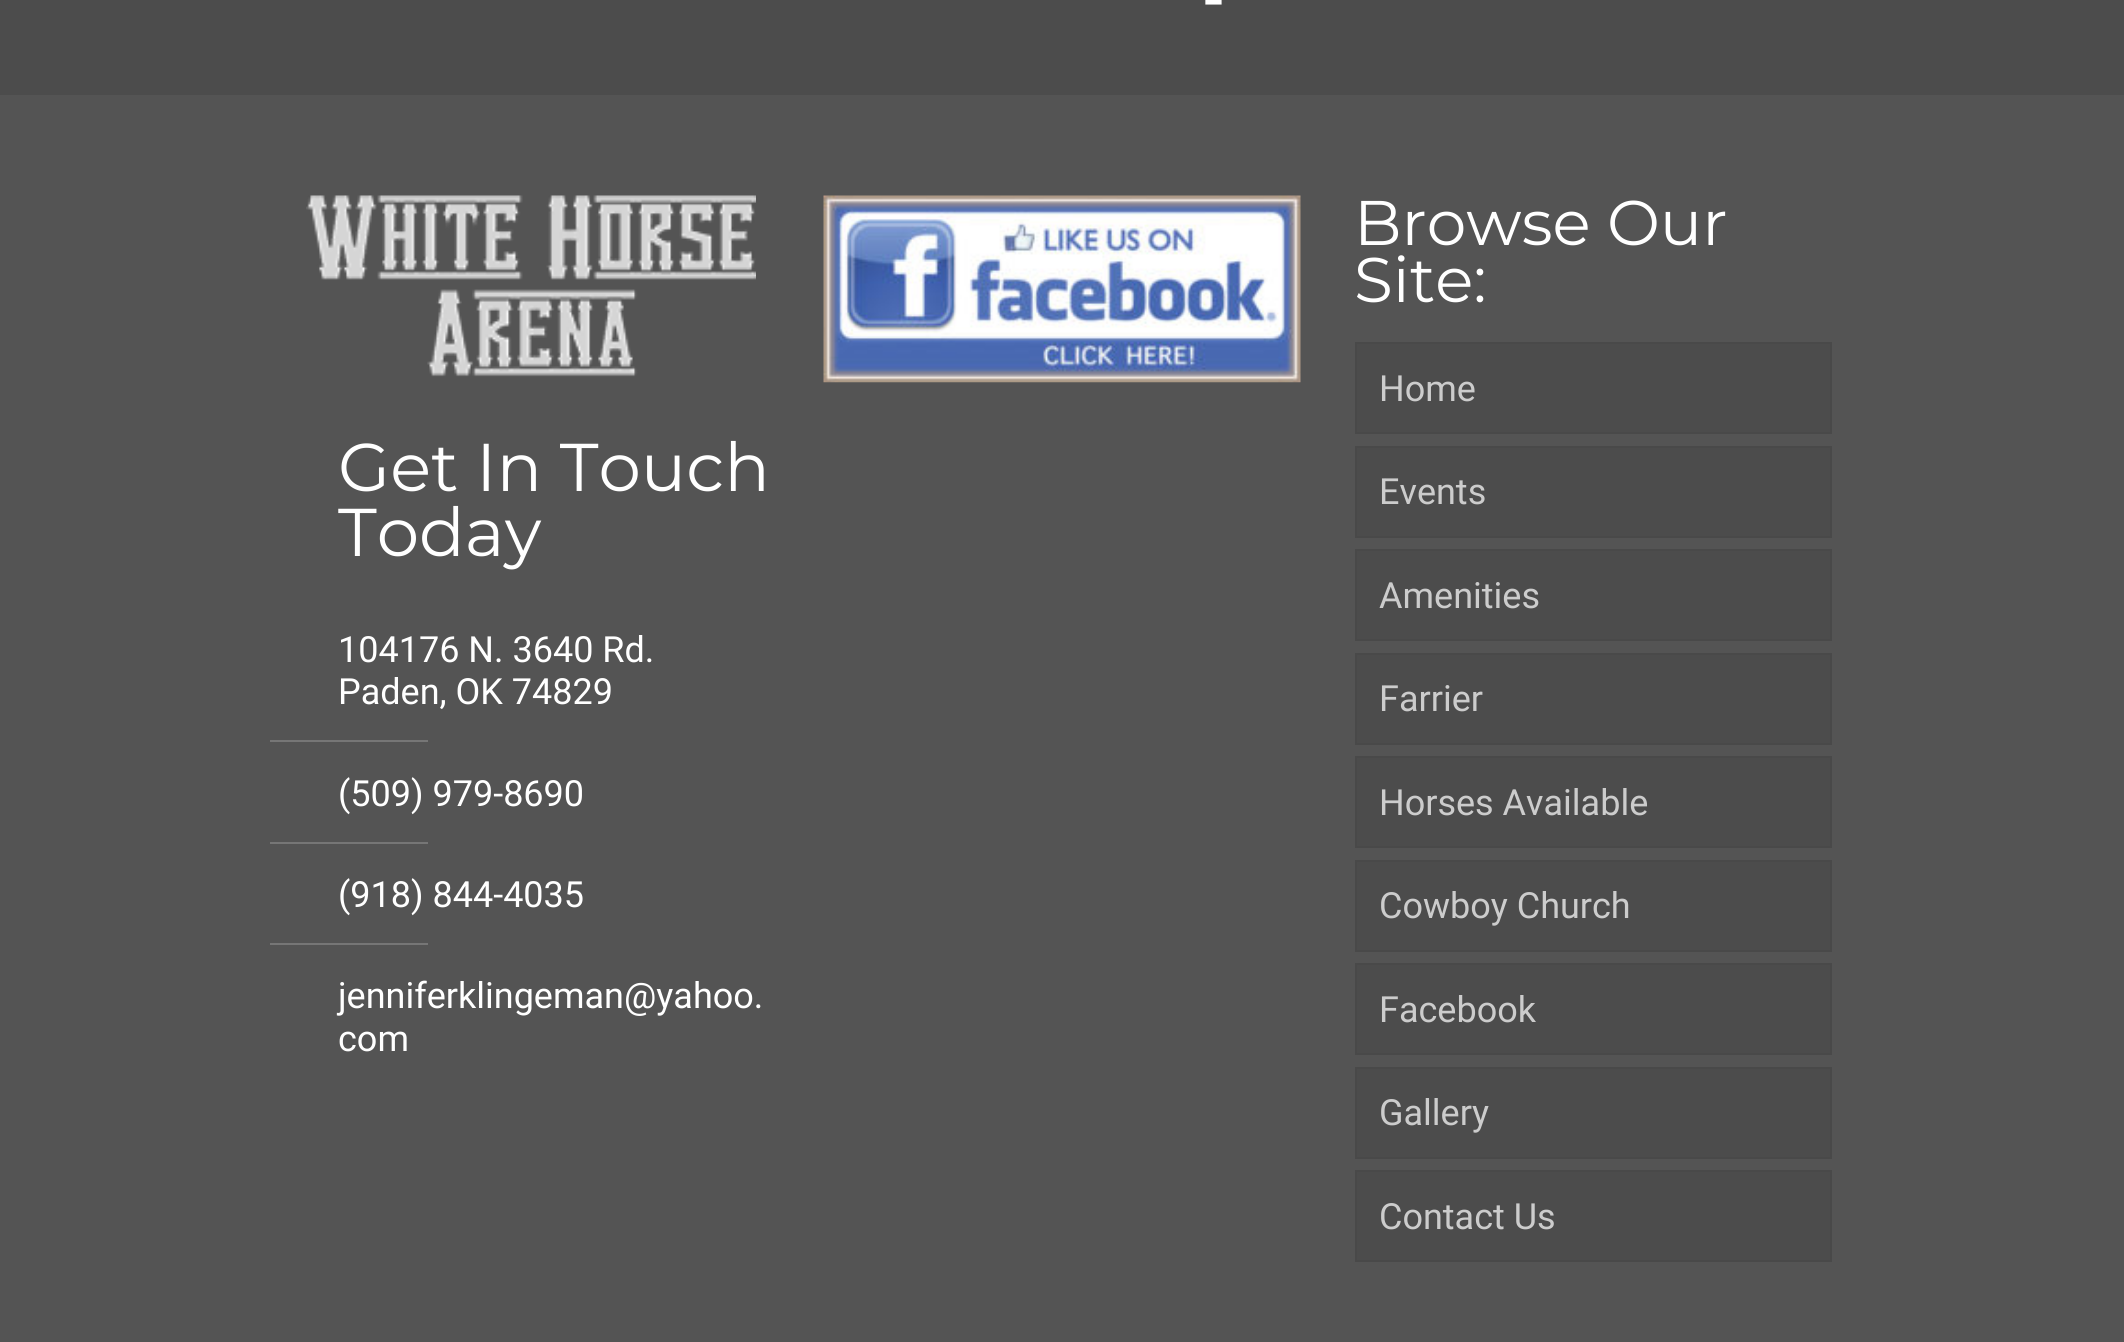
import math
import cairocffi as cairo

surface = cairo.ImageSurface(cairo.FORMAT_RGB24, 2124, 1342)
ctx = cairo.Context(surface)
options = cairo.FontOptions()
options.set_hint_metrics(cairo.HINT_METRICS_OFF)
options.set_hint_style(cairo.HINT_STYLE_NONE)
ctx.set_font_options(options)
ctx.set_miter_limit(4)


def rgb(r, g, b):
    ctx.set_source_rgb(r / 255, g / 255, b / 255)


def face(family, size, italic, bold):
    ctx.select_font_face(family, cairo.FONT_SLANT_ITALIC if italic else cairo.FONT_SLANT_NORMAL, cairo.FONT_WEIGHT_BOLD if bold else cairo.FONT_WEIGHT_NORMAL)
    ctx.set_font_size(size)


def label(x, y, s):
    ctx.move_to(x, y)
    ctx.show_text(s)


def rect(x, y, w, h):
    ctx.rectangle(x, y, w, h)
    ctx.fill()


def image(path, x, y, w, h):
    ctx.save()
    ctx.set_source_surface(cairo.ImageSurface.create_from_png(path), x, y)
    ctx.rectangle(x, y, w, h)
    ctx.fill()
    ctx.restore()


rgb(84, 84, 84)
ctx.paint()
rgb(76, 76, 76)
rect(0, 0, 2124, 95)
face('Montserrat', 56, 0, 1)
rgb(255, 255, 255)
label(1202, 18, '-')
image('image0.png', 306, 195, 450, 182)
face('Montserrat Thin', 67.5, 0, 0)
label(338, 491, 'Get In Touch')
label(338, 556, 'Today')
face('Roboto', 36, 0, 0)
label(338, 662, '104176 N. 3640 Rd.')
label(338, 704, 'Paden, OK 74829')
rgb(118, 118, 118)
rect(270, 740, 158, 2)
rgb(255, 255, 255)
label(338, 806, '(509) 979-8690')
rgb(118, 118, 118)
rect(270, 842, 158, 2)
rgb(255, 255, 255)
label(338, 907, '(918) 844-4035')
rgb(118, 118, 118)
rect(270, 943, 158, 2)
rgb(255, 255, 255)
label(338, 1008, 'jenniferklingeman@yahoo.')
label(338, 1051, 'com')
image('image1.png', 823, 195, 478, 188)
face('Montserrat Thin', 63, 0, 0)
label(1354, 245, 'Browse Our')
label(1354, 302, 'Site:')
rgb(76, 76, 76)
ctx.rectangle(1356, 343, 475, 90)
ctx.fill_preserve()
rgb(73, 73, 73)
ctx.stroke()
face('Roboto', 36, 0, 0)
rgb(204, 204, 204)
label(1379, 401, 'Home')
rgb(76, 76, 76)
ctx.rectangle(1356, 447, 475, 90)
ctx.fill_preserve()
rgb(73, 73, 73)
ctx.stroke()
rgb(204, 204, 204)
label(1379, 504, 'Events')
rgb(76, 76, 76)
ctx.rectangle(1356, 550, 475, 90)
ctx.fill_preserve()
rgb(73, 73, 73)
ctx.stroke()
rgb(204, 204, 204)
label(1379, 608, 'Amenities')
rgb(76, 76, 76)
ctx.rectangle(1356, 654, 475, 90)
ctx.fill_preserve()
rgb(73, 73, 73)
ctx.stroke()
rgb(204, 204, 204)
label(1379, 711, 'Farrier')
rgb(76, 76, 76)
ctx.rectangle(1356, 757, 475, 90)
ctx.fill_preserve()
rgb(73, 73, 73)
ctx.stroke()
rgb(204, 204, 204)
label(1379, 815, 'Horses Available')
rgb(76, 76, 76)
ctx.rectangle(1356, 861, 475, 90)
ctx.fill_preserve()
rgb(73, 73, 73)
ctx.stroke()
rgb(204, 204, 204)
label(1379, 918, 'Cowboy Church')
rgb(76, 76, 76)
ctx.rectangle(1356, 964, 475, 90)
ctx.fill_preserve()
rgb(73, 73, 73)
ctx.stroke()
rgb(204, 204, 204)
label(1379, 1022, 'Facebook')
rgb(76, 76, 76)
ctx.rectangle(1356, 1068, 475, 90)
ctx.fill_preserve()
rgb(73, 73, 73)
ctx.stroke()
rgb(204, 204, 204)
label(1379, 1125, 'Gallery')
rgb(76, 76, 76)
ctx.rectangle(1356, 1171, 475, 90)
ctx.fill_preserve()
rgb(73, 73, 73)
ctx.stroke()
rgb(204, 204, 204)
label(1379, 1229, 'Contact Us')
surface.write_to_png('render.png')
